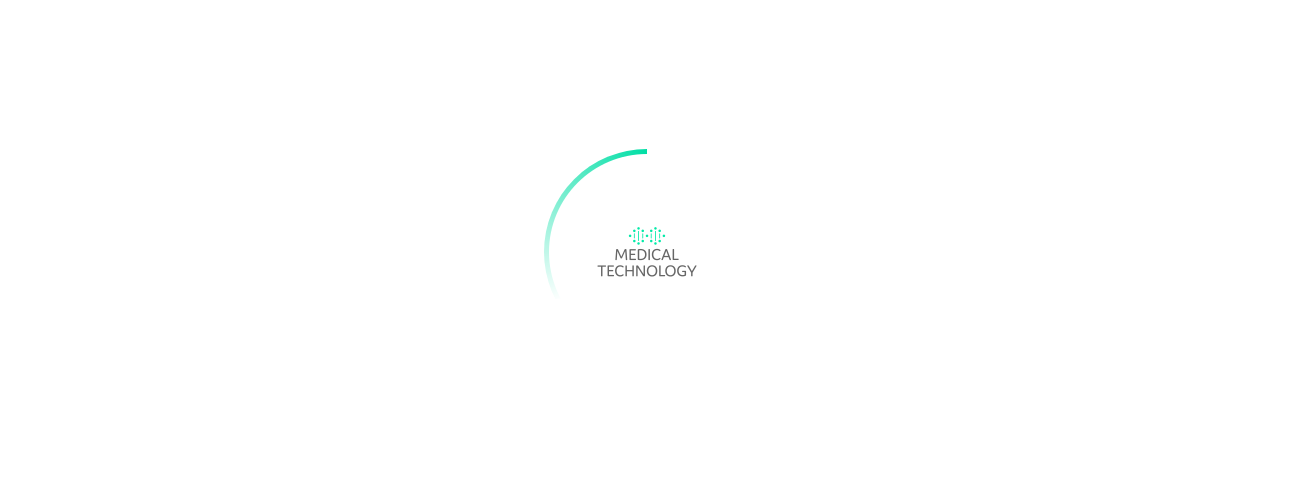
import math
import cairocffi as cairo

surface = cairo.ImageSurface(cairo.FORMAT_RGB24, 1293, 504)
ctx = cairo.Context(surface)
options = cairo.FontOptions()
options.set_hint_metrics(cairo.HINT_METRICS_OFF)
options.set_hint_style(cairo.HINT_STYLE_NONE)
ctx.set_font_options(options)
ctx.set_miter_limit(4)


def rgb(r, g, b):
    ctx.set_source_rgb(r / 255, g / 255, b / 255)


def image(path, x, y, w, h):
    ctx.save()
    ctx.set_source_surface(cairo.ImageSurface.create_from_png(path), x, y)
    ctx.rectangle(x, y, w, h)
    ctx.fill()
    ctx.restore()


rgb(255, 255, 255)
ctx.paint()
image('image0.png', 544, 149, 103, 150)
rgb(255, 255, 255)
ctx.arc(647, 252, 98, 0, 2 * math.pi)
ctx.fill()
image('image1.png', 597, 227, 100, 50)
surface.write_to_png('render.png')
